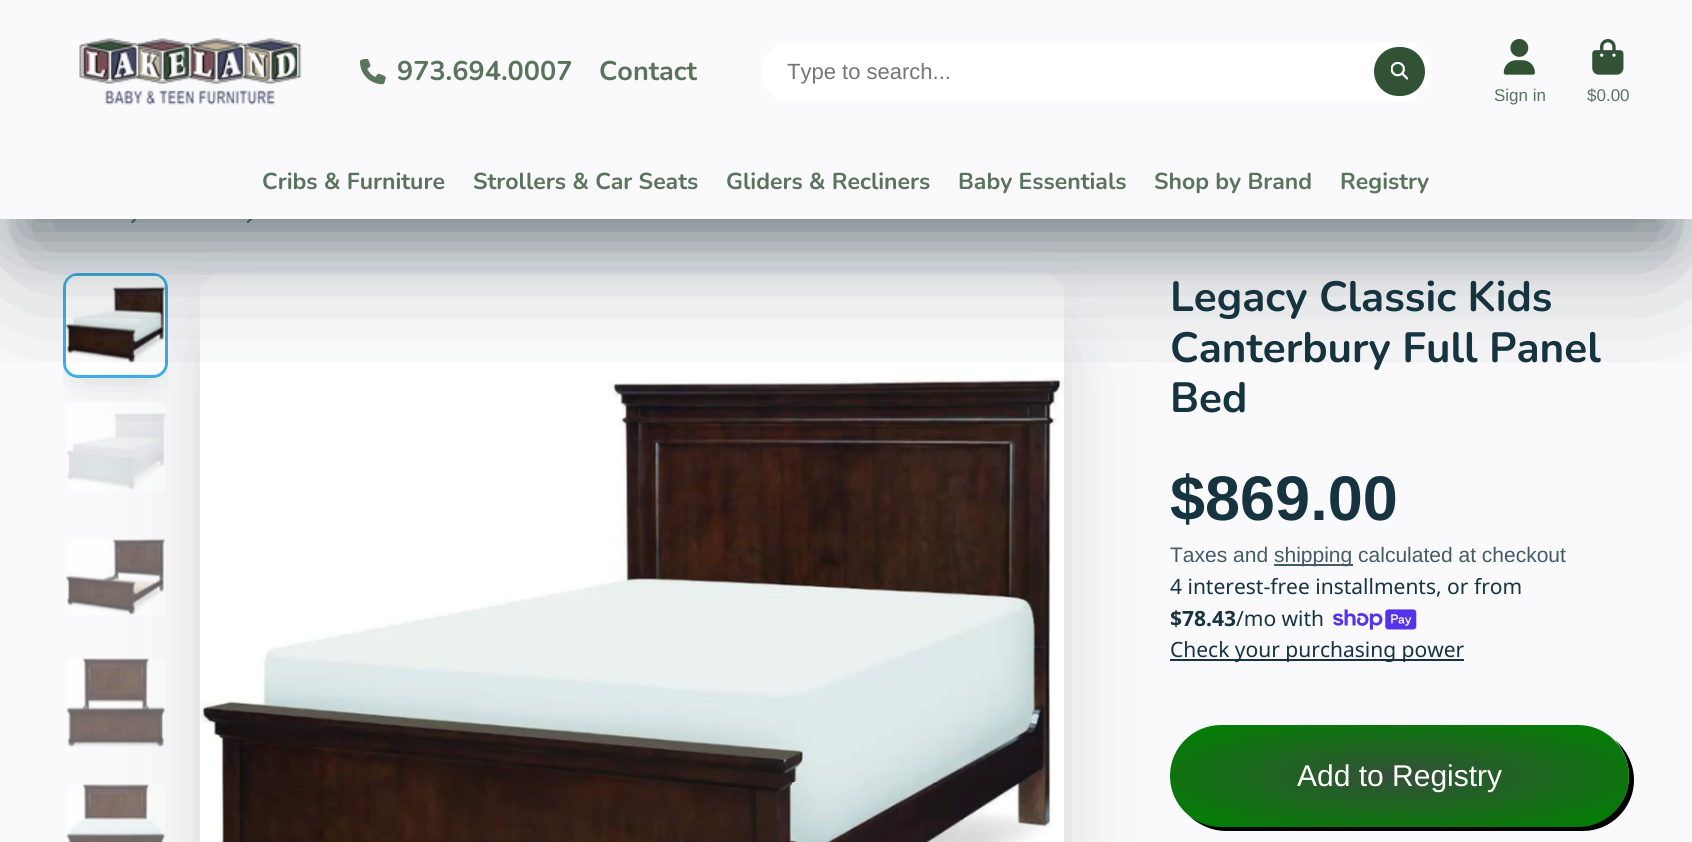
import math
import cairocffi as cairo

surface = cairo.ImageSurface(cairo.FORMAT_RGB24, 1692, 842)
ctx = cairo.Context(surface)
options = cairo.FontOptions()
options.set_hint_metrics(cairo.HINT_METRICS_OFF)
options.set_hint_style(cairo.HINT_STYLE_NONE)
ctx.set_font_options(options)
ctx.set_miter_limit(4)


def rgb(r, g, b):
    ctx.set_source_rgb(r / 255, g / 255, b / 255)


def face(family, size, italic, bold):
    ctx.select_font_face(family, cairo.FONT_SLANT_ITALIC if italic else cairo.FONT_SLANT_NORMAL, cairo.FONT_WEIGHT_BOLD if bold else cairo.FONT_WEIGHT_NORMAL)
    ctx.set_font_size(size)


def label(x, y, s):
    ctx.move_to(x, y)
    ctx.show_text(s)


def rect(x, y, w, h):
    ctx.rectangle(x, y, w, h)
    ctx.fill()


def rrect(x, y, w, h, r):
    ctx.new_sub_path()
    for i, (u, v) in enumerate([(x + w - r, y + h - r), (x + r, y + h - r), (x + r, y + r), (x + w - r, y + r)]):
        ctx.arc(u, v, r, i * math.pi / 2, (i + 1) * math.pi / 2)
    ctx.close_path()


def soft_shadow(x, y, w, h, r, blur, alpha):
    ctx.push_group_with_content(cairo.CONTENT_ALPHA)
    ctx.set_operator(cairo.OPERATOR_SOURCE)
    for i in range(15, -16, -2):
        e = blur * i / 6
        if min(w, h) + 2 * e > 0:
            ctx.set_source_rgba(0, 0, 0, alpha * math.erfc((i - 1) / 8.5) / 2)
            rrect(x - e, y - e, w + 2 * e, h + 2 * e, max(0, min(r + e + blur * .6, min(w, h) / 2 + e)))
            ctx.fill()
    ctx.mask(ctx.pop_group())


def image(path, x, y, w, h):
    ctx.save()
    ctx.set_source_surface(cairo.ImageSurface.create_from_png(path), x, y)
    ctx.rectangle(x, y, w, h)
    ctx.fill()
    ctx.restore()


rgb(250, 249, 251)
ctx.paint()
image('image5.png', 131, 219, 6, 5)
image('image6.png', 246, 219, 7, 5)
ctx.save()
ctx.rectangle(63, 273, 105, 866)
ctx.clip()
rgb(15, 36, 45)
soft_shadow(84, 305, 63, 63, 0, 21, 0.3)
ctx.restore()
rrect(64.5, 274.5, 102, 102, 13.5)
rgb(62, 175, 225)
ctx.set_line_width(3)
ctx.stroke()
image('image8.png', 66, 276, 99, 99)
image('image9.png', 66, 402, 99, 88)
image('image10.png', 66, 538, 99, 77)
image('image11.png', 66, 658, 99, 90)
image('image12.png', 66, 784, 99, 58)
rgb(15, 36, 45)
soft_shadow(239, 353, 787, 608, 0, 39.5, 0.3)
soft_shadow(227, 365, 813, 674, 0, 65.5, 0.1)
image('image7.png', 200, 273, 864, 569)
ctx.save()
ctx.rectangle(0, 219, 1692, 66)
ctx.clip()
soft_shadow(21, 60, 1650, 177, 0, 29, 0.4)
ctx.restore()
ctx.save()
ctx.rectangle(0, 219, 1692, 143)
ctx.clip()
soft_shadow(21, 87, 1650, 177, 0, 65.5, 0.3)
ctx.restore()
image('image0.png', 79, 38, 223, 67)
image('image1.png', 360, 59, 26, 26)
face('Nunito', 27, 0, 1)
rgb(90, 115, 93)
label(397, 80, '973.694.0007')
label(599, 80, 'Contact')
rgb(255, 255, 255)
rrect(761, 42, 670, 60, 30)
ctx.fill()
rect(776, 42, 640, 60)
face('Liberation Sans', 22, 0, 0)
rgb(117, 117, 117)
label(787, 79, 'Type to search...')
rgb(50, 82, 54)
rrect(1374, 47, 51, 49, 24.5)
ctx.fill()
image('image2.png', 1391, 62, 17, 18)
image('image3.png', 1503, 39, 32, 36)
face('Liberation Sans', 17, 0, 0)
rgb(90, 115, 93)
label(1494, 101, 'Sign in')
image('image4.png', 1592, 39, 32, 36)
label(1587, 101, '$0.00')
face('Nunito', 23, 0, 1)
label(262, 189, 'Cribs & Furniture')
label(473, 189, 'Strollers & Car Seats')
label(726, 189, 'Gliders & Recliners')
label(958, 189, 'Baby Essentials')
label(1154, 189, 'Shop by Brand')
label(1340, 189, 'Registry')
face('Nunito', 42.25, 0, 1)
rgb(22, 51, 64)
label(1170, 311, 'Legacy Classic Kids')
label(1170, 362, 'Canterbury Full Panel')
label(1170, 412, 'Bed')
face('Liberation Sans', 63, 0, 1)
label(1170, 520, '$869.00')
face('Liberation Sans', 21, 0, 0)
rgb(68, 91, 101)
label(1170, 562, 'Taxes and')
rect(1274, 564, 79, 2)
label(1274, 562, 'shipping calculated at checkout')
face('Noto Sans', 21, 0, 0)
rgb(22, 51, 64)
label(1170, 594, '4 interest-free installments, or from')
face('Noto Sans', 21, 0, 1)
label(1170, 626, '$78.43')
face('Noto Sans', 21, 0, 0)
label(1236, 626, '/mo with')
image('image13.png', 1333, 609, 84, 21)
rect(1170, 659, 294, 2)
label(1170, 657, 'Check your purchasing power')
rgb(0, 0, 0)
ctx.new_path()
ctx.move_to(1189, 816)
ctx.curve_to(1199, 825, 1212, 831, 1226, 831)
ctx.line_to(1583, 831)
ctx.curve_to(1611, 831, 1634, 808, 1634, 780)
ctx.curve_to(1634, 764, 1626, 749, 1615, 740)
ctx.curve_to(1623, 749, 1629, 762, 1629, 776)
ctx.curve_to(1629, 804, 1606, 826, 1578, 826)
ctx.line_to(1221, 826)
ctx.curve_to(1209, 826, 1198, 822, 1189, 816)
ctx.close_path()
ctx.fill()
gradient = cairo.RadialGradient(0, 0, 0, 0, 0, 1)
gradient.set_matrix(cairo.Matrix(1 / 325, 0, 0, 1 / 72, -1 * 1400 / 325, -1 * 776 / 72))
gradient.add_color_stop_rgba(0.05, 0.196, 0.322, 0.212, 1)
gradient.add_color_stop_rgba(0.95, 0, 0.502, 0, 1)
ctx.set_source(gradient)
rrect(1170, 725, 459, 102, 51)
ctx.fill()
face('Liberation Sans', 30, 0, 0)
rgb(255, 255, 255)
label(1297, 786, 'Add to Registry')
surface.write_to_png('render.png')
